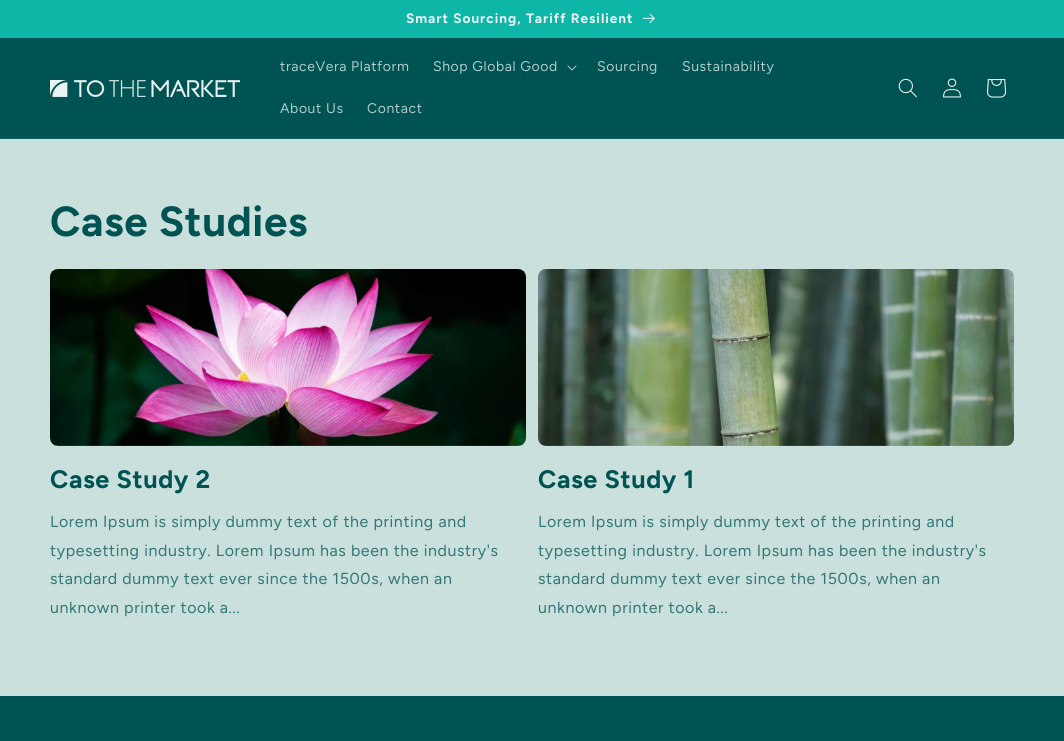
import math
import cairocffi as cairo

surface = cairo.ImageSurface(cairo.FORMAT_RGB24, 1064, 741)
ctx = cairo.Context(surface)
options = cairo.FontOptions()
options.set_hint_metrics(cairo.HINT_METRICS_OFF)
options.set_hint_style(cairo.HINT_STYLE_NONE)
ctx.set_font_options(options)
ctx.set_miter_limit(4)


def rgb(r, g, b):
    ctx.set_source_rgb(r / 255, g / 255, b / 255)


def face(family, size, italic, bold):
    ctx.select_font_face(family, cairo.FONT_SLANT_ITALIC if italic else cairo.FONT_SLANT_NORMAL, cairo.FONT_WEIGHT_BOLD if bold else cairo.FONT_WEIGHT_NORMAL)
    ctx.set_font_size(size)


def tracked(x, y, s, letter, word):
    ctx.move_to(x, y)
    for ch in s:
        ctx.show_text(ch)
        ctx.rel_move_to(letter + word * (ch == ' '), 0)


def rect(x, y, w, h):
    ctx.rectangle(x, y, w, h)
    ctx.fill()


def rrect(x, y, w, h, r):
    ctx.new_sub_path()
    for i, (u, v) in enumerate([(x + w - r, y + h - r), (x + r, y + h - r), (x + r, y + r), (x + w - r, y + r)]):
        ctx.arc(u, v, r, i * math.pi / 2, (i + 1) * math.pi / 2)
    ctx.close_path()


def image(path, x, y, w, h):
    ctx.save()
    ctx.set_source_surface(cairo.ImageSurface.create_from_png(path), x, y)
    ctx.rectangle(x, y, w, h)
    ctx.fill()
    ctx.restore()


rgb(201, 224, 220)
ctx.paint()
rgb(14, 182, 167)
rect(0, 0, 1064, 38)
face('Figtree', 13.6, 0, 1)
rgb(236, 243, 242)
tracked(406, 23, 'Smart Sourcing, Tariff Resilient', 1, 0)
image('image0.png', 643, 13, 12, 11)
rgb(0, 83, 83)
rect(0, 38, 1064, 100)
rgb(19, 96, 96)
rect(0, 138, 1064, 1)
image('image1.png', 50, 80, 190, 17)
face('Figtree', 14, 0, 0)
rgb(177, 203, 202)
tracked(280, 71, 'traceVera Platform', 0.6, 0)
tracked(433, 71, 'Shop Global Good', 0.6, 0)
image('image2.png', 567, 65, 10, 6)
tracked(597, 71, 'Sourcing', 0.6, 0)
tracked(682, 71, 'Sustainability', 0.6, 0)
tracked(280, 113, 'About Us', 0.6, 0)
tracked(367, 113, 'Contact', 0.6, 0)
image('image3.png', 898, 78, 19, 20)
image('image4.png', 943, 78, 18, 20)
image('image5.png', 987, 79, 20, 19)
face('Figtree', 42, 0, 1)
rgb(0, 83, 83)
tracked(50, 236, 'Case Studies', 0.6, 0)
rgb(236, 243, 242)
rrect(50, 269, 476, 177, 8)
ctx.fill()
ctx.set_source_rgba(0, 0.325, 0.325, 0.1)
rrect(50, 269, 476, 177, 8)
ctx.fill()
image('image6.png', 50, 269, 476, 177)
face('Figtree', 25.25, 0, 1)
rgb(0, 83, 83)
tracked(50, 488, 'Case Study 2', 0.6, 0)
face('Figtree', 16, 0, 0)
rgb(50, 118, 117)
tracked(50, 527, 'Lorem Ipsum is simply dummy text of the printing and', 0.6, 0)
tracked(50, 556, 'typesetting industry. Lorem Ipsum has been the industry\'s', 0.6, 0)
tracked(50, 584, 'standard dummy text ever since the 1500s, when an', 0.6, 0)
tracked(50, 613, 'unknown printer took a...', 0.6, 0)
rgb(236, 243, 242)
rrect(538, 269, 476, 177, 8)
ctx.fill()
ctx.set_source_rgba(0, 0.325, 0.325, 0.1)
rrect(538, 269, 476, 177, 8)
ctx.fill()
image('image7.png', 538, 269, 476, 177)
face('Figtree', 25.25, 0, 1)
rgb(0, 83, 83)
tracked(538, 488, 'Case Study 1', 0.6, 0)
face('Figtree', 16, 0, 0)
rgb(50, 118, 117)
tracked(538, 527, 'Lorem Ipsum is simply dummy text of the printing and', 0.6, 0)
tracked(538, 556, 'typesetting industry. Lorem Ipsum has been the industry\'s', 0.6, 0)
tracked(538, 584, 'standard dummy text ever since the 1500s, when an', 0.6, 0)
tracked(538, 613, 'unknown printer took a...', 0.6, 0)
rgb(0, 83, 83)
rect(0, 696, 1064, 45)
surface.write_to_png('render.png')
